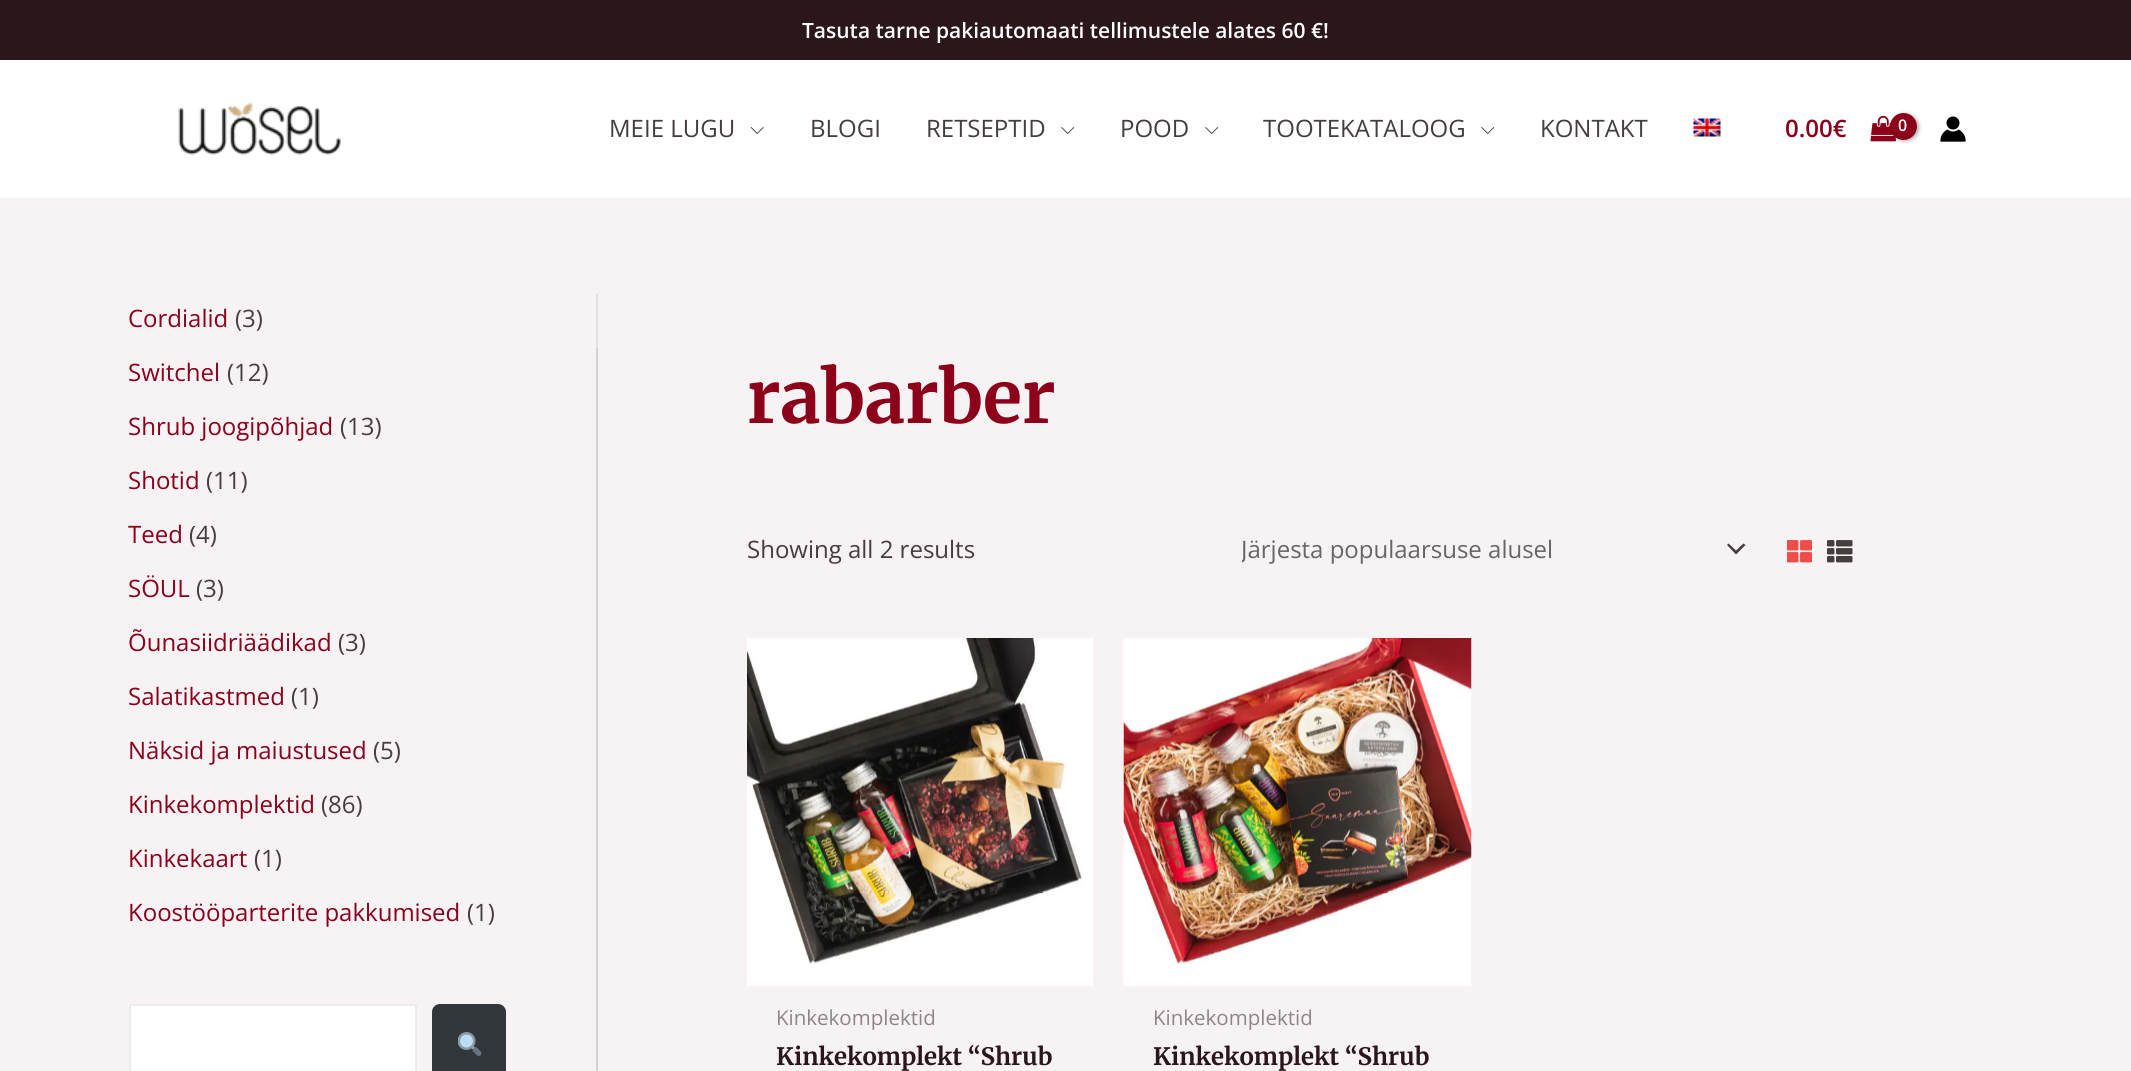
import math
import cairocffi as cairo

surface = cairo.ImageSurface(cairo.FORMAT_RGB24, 2131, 1071)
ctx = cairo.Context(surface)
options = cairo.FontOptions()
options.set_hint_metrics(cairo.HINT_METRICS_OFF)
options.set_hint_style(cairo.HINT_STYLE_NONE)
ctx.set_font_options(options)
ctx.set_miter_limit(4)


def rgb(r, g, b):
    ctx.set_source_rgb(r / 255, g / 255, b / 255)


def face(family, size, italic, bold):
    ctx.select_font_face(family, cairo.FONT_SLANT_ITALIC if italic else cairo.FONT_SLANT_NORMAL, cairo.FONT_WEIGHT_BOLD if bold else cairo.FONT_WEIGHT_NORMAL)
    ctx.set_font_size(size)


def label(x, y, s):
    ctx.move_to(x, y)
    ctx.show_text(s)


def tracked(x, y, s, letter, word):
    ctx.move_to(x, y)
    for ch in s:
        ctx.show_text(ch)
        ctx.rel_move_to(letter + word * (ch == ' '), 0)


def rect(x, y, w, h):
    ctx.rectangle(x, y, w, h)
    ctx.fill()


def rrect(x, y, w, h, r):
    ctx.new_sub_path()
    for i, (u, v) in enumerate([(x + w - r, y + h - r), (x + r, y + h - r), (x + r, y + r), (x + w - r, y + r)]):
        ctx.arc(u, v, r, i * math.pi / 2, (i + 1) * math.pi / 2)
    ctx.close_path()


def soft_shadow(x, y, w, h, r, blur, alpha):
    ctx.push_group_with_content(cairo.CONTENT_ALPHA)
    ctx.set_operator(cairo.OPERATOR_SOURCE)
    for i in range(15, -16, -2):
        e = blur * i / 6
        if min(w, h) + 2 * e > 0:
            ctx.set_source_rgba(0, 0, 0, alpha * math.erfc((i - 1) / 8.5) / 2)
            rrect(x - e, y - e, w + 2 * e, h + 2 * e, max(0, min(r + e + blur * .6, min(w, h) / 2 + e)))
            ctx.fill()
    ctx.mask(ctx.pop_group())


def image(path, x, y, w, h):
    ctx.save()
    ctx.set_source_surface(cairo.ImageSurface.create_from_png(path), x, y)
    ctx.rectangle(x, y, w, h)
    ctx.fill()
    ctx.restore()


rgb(247, 243, 245)
ctx.paint()
rgb(43, 22, 27)
rect(0, 0, 2131, 60)
face('Open Sans SemiBold', 21, 0, 0)
rgb(255, 255, 255)
label(802, 38, 'Tasuta tarne pakiautomaati tellimustele alates 60 €!')
rect(0, 60, 2131, 138)
image('image0.png', 178, 102, 163, 53)
face('Open Sans', 24, 0, 0)
rgb(69, 62, 62)
label(609, 137, 'MEIE LUGU')
image('image1.png', 750, 127, 14, 7)
label(810, 137, 'BLOGI')
label(926, 137, 'RETSEPTID')
image('image2.png', 1061, 127, 14, 7)
label(1120, 137, 'POOD')
image('image2.png', 1205, 127, 14, 7)
label(1263, 137, 'TOOTEKATALOOG')
image('image2.png', 1481, 127, 14, 7)
label(1540, 137, 'KONTAKT')
image('image3.png', 1693, 118, 28, 19)
face('Open Sans SemiBold', 24, 0, 0)
rgb(140, 0, 26)
label(1785, 137, '0.00€')
image('image4.png', 1870, 115, 26, 27)
rgb(0, 0, 0)
soft_shadow(1892, 114, 27, 27, 13.5, 2, 0.3)
rgb(140, 0, 26)
ctx.arc(1903.5, 126.5, 13.5, 0, 2 * math.pi)
ctx.fill()
face('Open Sans SemiBold', 16, 0, 0)
rgb(255, 255, 255)
tracked(1898, 131, '0', -1, 0)
image('image5.png', 1940, 116, 26, 26)
rgb(228, 225, 228)
rect(596, 294, 2, 54)
face('Open Sans', 24, 0, 0)
rgb(140, 0, 26)
label(128, 327, 'Cordialid')
rgb(69, 62, 62)
label(235, 327, '(3)')
rgb(140, 0, 26)
label(128, 381, 'Switchel')
rgb(69, 62, 62)
label(227, 381, '(12)')
rgb(140, 0, 26)
label(128, 435, 'Shrub joogipõhjad')
rgb(69, 62, 62)
label(340, 435, '(13)')
rgb(140, 0, 26)
label(128, 489, 'Shotid')
rgb(69, 62, 62)
label(206, 489, '(11)')
rgb(140, 0, 26)
label(128, 543, 'Teed')
rgb(69, 62, 62)
label(189, 543, '(4)')
rgb(140, 0, 26)
label(128, 597, 'SÖUL')
rgb(69, 62, 62)
label(196, 597, '(3)')
rgb(140, 0, 26)
label(128, 651, 'Õunasiidriäädikad')
rgb(69, 62, 62)
label(338, 651, '(3)')
rgb(140, 0, 26)
label(128, 705, 'Salatikastmed')
rgb(69, 62, 62)
label(291, 705, '(1)')
rgb(140, 0, 26)
label(128, 759, 'Näksid ja maiustused')
rgb(69, 62, 62)
label(373, 759, '(5)')
rgb(140, 0, 26)
label(128, 813, 'Kinkekomplektid')
rgb(69, 62, 62)
label(321, 813, '(86)')
rgb(140, 0, 26)
label(128, 867, 'Kinkekaart')
rgb(69, 62, 62)
label(254, 867, '(1)')
rgb(140, 0, 26)
label(128, 921, 'Koostööparterite pakkumised')
rgb(69, 62, 62)
label(467, 921, '(1)')
rgb(255, 255, 255)
ctx.rectangle(130, 1005, 286, 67)
ctx.fill_preserve()
rgb(235, 236, 237)
ctx.stroke()
rgb(50, 55, 60)
rrect(432, 1004, 74, 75, 8)
ctx.fill()
image('image6.png', 458, 1032, 24, 24)
rgb(211, 209, 213)
rect(596, 348, 2, 723)
face('Merriweather Light', 72, 0, 0)
rgb(140, 0, 26)
label(747, 423, 'rabarber')
face('Open Sans', 24, 0, 0)
rgb(69, 62, 62)
label(747, 558, 'Showing all 2 results')
ctx.new_path()
ctx.move_to(1727, 545)
ctx.line_to(1736, 554.5)
ctx.line_to(1745.5, 545)
ctx.line_to(1743.5, 543.5)
ctx.line_to(1736, 550.5)
ctx.line_to(1728.5, 543.5)
ctx.close_path()
ctx.fill()
ctx.save()
ctx.rectangle(1242, 533, 467, 33)
ctx.clip()
rgb(102, 102, 102)
label(1241, 558, 'Järjesta populaarsuse alusel')
ctx.restore()
image('image7.png', 1787, 540, 25, 23)
image('image8.png', 1827, 540, 26, 23)
image('image9.png', 747, 638, 346, 348)
face('Open Sans', 20.5, 0, 0)
rgb(140, 134, 135)
label(776, 1025, 'Kinkekomplektid')
face('Merriweather Light', 24, 0, 0)
rgb(43, 22, 27)
label(776, 1065, 'Kinkekomplekt “Shrub')
image('image10.png', 1123, 638, 349, 348)
face('Open Sans', 20.5, 0, 0)
rgb(140, 134, 135)
label(1153, 1025, 'Kinkekomplektid')
face('Merriweather Light', 24, 0, 0)
rgb(43, 22, 27)
label(1153, 1065, 'Kinkekomplekt “Shrub')
surface.write_to_png('render.png')
